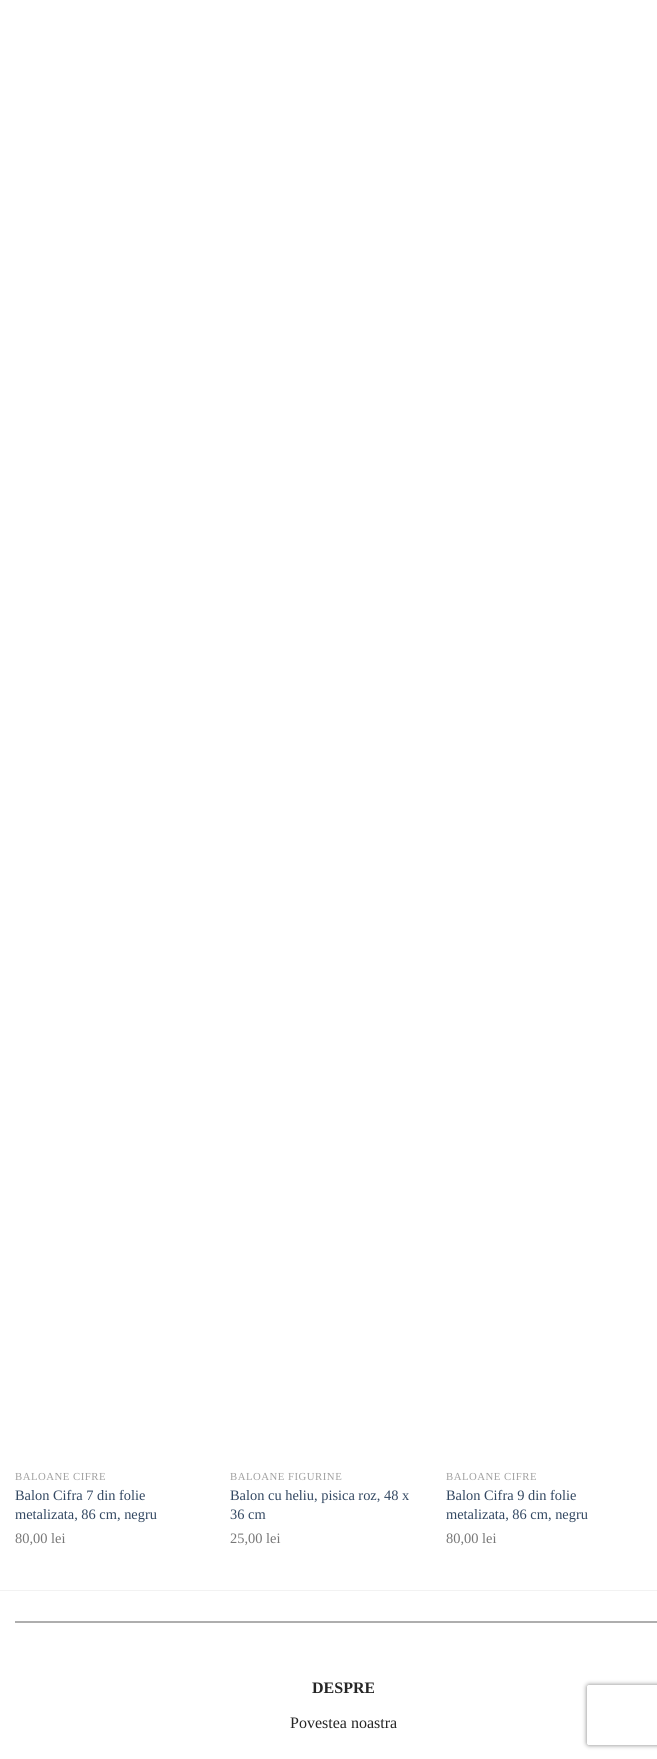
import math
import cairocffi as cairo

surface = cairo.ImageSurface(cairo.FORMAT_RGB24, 657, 1759)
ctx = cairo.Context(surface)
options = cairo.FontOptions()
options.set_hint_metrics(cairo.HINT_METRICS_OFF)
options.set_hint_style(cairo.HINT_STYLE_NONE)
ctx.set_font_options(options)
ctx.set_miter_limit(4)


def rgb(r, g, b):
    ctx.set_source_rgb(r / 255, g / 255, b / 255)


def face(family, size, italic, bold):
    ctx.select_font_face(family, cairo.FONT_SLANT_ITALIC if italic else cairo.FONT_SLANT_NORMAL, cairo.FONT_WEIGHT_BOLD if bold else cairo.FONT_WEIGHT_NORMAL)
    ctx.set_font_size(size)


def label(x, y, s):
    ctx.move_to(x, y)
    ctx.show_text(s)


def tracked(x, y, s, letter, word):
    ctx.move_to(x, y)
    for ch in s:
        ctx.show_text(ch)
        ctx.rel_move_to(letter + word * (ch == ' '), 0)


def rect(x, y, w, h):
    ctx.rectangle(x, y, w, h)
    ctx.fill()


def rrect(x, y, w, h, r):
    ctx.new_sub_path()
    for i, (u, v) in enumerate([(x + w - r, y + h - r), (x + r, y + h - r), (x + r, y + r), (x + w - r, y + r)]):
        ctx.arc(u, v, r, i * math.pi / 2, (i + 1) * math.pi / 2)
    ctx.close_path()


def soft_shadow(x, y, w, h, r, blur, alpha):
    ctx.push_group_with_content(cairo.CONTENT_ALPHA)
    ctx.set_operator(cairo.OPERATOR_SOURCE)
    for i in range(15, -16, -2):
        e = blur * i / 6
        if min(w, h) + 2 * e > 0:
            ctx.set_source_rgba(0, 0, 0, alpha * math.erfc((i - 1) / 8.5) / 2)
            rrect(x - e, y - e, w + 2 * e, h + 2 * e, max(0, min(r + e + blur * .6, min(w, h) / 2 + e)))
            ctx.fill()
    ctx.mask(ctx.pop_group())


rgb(255, 255, 255)
ctx.paint()
face('Liberation Serif', 10.75, 0, 0)
rgb(160, 160, 160)
tracked(15, 1480, 'BALOANE CIFRE', 0.5, 0)
face('Liberation Serif', 14.4, 0, 0)
rgb(51, 72, 98)
label(15, 1500, 'Balon Cifra 7 din folie')
label(15, 1519, 'metalizata, 86 cm, negru')
rgb(119, 119, 119)
label(15, 1543, '80,00 lei')
face('Liberation Serif', 10.75, 0, 0)
rgb(160, 160, 160)
tracked(230, 1480, 'BALOANE FIGURINE', 0.5, 0)
face('Liberation Serif', 14.4, 0, 0)
rgb(51, 72, 98)
label(230, 1500, 'Balon cu heliu, pisica roz, 48 x')
label(230, 1519, '36 cm')
rgb(119, 119, 119)
label(230, 1543, '25,00 lei')
face('Liberation Serif', 10.75, 0, 0)
rgb(160, 160, 160)
tracked(446, 1480, 'BALOANE CIFRE', 0.5, 0)
face('Liberation Serif', 14.4, 0, 0)
rgb(51, 72, 98)
label(446, 1500, 'Balon Cifra 9 din folie')
label(446, 1519, 'metalizata, 86 cm, negru')
rgb(119, 119, 119)
label(446, 1543, '80,00 lei')
rgb(242, 242, 242)
rect(0, 1590, 657, 1)
rgb(174, 174, 174)
rect(15, 1621, 642, 2)
face('Liberation Serif', 16, 0, 1)
rgb(37, 37, 37)
label(312, 1693, 'DESPRE')
face('Liberation Serif', 16, 0, 0)
label(290, 1728, 'Povestea noastra')
ctx.save()
ctx.set_fill_rule(cairo.FILL_RULE_EVEN_ODD)
ctx.new_path()
ctx.move_to(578, 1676)
ctx.line_to(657, 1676)
ctx.line_to(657, 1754)
ctx.line_to(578, 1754)
ctx.close_path()
ctx.move_to(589, 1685)
ctx.line_to(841, 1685)
ctx.curve_to(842, 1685, 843, 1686, 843, 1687)
ctx.line_to(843, 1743)
ctx.curve_to(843, 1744, 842, 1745, 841, 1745)
ctx.line_to(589, 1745)
ctx.curve_to(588, 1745, 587, 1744, 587, 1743)
ctx.line_to(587, 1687)
ctx.curve_to(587, 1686, 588, 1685, 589, 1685)
ctx.close_path()
ctx.clip()
rgb(128, 128, 128)
soft_shadow(587, 1685, 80, 60, 2, 2.5, 1)
ctx.restore()
surface.write_to_png('render.png')
